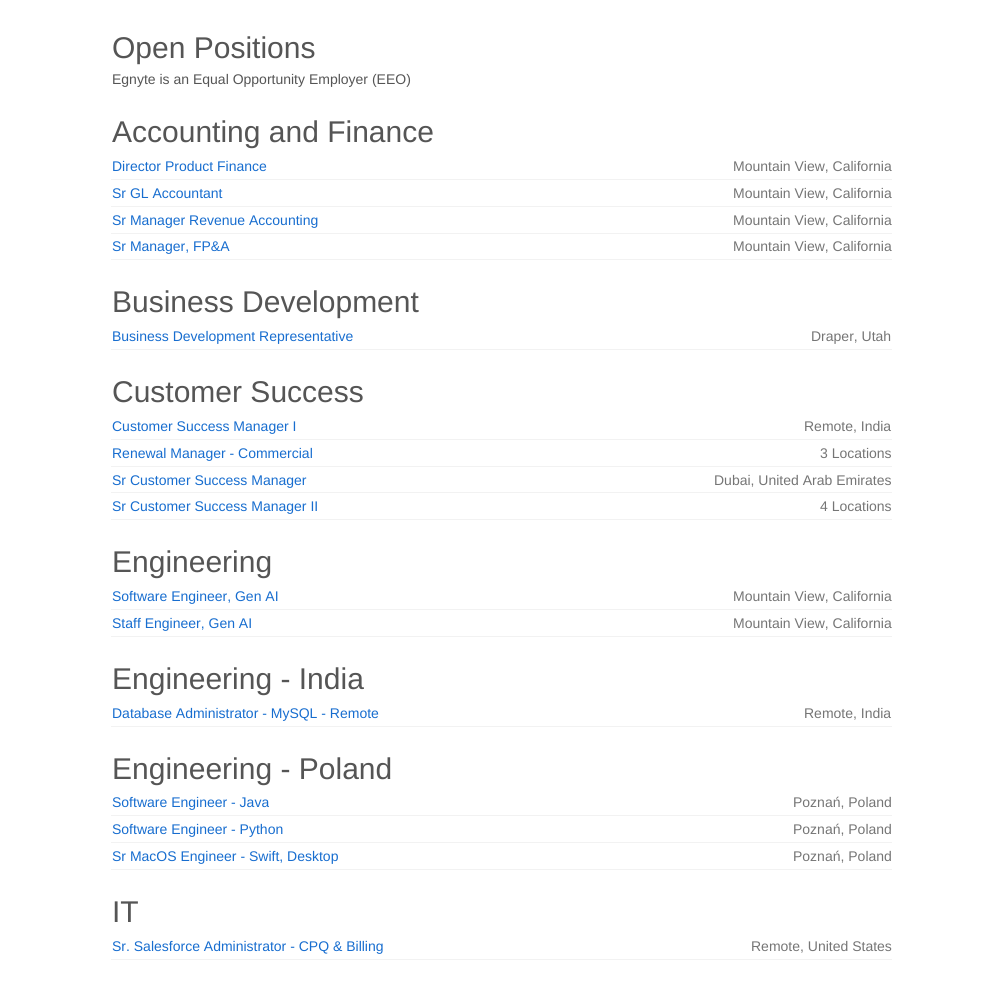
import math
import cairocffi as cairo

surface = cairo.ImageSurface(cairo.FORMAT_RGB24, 1003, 986)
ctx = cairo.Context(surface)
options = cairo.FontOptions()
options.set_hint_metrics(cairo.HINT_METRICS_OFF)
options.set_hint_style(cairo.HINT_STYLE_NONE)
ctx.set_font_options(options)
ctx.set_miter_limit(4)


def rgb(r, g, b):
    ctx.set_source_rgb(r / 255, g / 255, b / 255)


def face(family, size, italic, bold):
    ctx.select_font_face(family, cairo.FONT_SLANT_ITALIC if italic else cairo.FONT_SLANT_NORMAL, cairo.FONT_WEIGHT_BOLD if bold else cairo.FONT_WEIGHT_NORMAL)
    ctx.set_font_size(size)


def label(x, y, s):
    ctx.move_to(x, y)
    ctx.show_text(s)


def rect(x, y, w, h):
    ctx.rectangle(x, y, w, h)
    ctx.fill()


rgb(255, 255, 255)
ctx.paint()
face('Liberation Sans', 30, 0, 0)
rgb(85, 85, 85)
label(112, 58, 'Open Positions')
face('Liberation Sans', 14, 0, 0)
label(112, 84, 'Egnyte is an Equal Opportunity Employer (EEO)')
face('Liberation Sans', 30, 0, 0)
label(112, 142, 'Accounting and Finance')
face('Liberation Sans', 14, 0, 0)
rgb(23, 109, 207)
label(112, 171, 'Director Product Finance')
rgb(242, 242, 242)
rect(111, 179, 781, 1)
rgb(117, 117, 117)
label(733, 171, 'Mountain View, California')
rgb(23, 109, 207)
label(112, 198, 'Sr GL Accountant')
rgb(242, 242, 242)
rect(111, 206, 781, 1)
rgb(117, 117, 117)
label(733, 198, 'Mountain View, California')
rgb(23, 109, 207)
label(112, 225, 'Sr Manager Revenue Accounting')
rgb(242, 242, 242)
rect(111, 233, 781, 1)
rgb(117, 117, 117)
label(733, 225, 'Mountain View, California')
rgb(23, 109, 207)
label(112, 251, 'Sr Manager, FP&A')
rgb(242, 242, 242)
rect(111, 259, 781, 1)
rgb(117, 117, 117)
label(733, 251, 'Mountain View, California')
face('Liberation Sans', 30, 0, 0)
rgb(85, 85, 85)
label(112, 312, 'Business Development')
face('Liberation Sans', 14, 0, 0)
rgb(23, 109, 207)
label(112, 341, 'Business Development Representative')
rgb(242, 242, 242)
rect(111, 349, 781, 1)
rgb(117, 117, 117)
label(811, 341, 'Draper, Utah')
face('Liberation Sans', 30, 0, 0)
rgb(85, 85, 85)
label(112, 402, 'Customer Success')
face('Liberation Sans', 14, 0, 0)
rgb(23, 109, 207)
label(112, 431, 'Customer Success Manager I')
rgb(242, 242, 242)
rect(111, 439, 781, 1)
rgb(117, 117, 117)
label(804, 431, 'Remote, India')
rgb(23, 109, 207)
label(112, 458, 'Renewal Manager - Commercial')
rgb(242, 242, 242)
rect(111, 466, 781, 1)
rgb(117, 117, 117)
label(820, 458, '3 Locations')
rgb(23, 109, 207)
label(112, 485, 'Sr Customer Success Manager')
rgb(242, 242, 242)
rect(111, 492, 781, 1)
rgb(117, 117, 117)
label(714, 485, 'Dubai, United Arab Emirates')
rgb(23, 109, 207)
label(112, 511, 'Sr Customer Success Manager II')
rgb(242, 242, 242)
rect(111, 519, 781, 1)
rgb(117, 117, 117)
label(820, 511, '4 Locations')
face('Liberation Sans', 30, 0, 0)
rgb(85, 85, 85)
label(112, 572, 'Engineering')
face('Liberation Sans', 14, 0, 0)
rgb(23, 109, 207)
label(112, 601, 'Software Engineer, Gen AI')
rgb(242, 242, 242)
rect(111, 609, 781, 1)
rgb(117, 117, 117)
label(733, 601, 'Mountain View, California')
rgb(23, 109, 207)
label(112, 628, 'Staff Engineer, Gen AI')
rgb(242, 242, 242)
rect(111, 636, 781, 1)
rgb(117, 117, 117)
label(733, 628, 'Mountain View, California')
face('Liberation Sans', 30, 0, 0)
rgb(85, 85, 85)
label(112, 689, 'Engineering - India')
face('Liberation Sans', 14, 0, 0)
rgb(23, 109, 207)
label(112, 718, 'Database Administrator - MySQL - Remote')
rgb(242, 242, 242)
rect(111, 726, 781, 1)
rgb(117, 117, 117)
label(804, 718, 'Remote, India')
face('Liberation Sans', 30, 0, 0)
rgb(85, 85, 85)
label(112, 779, 'Engineering - Poland')
face('Liberation Sans', 14, 0, 0)
rgb(23, 109, 207)
label(112, 807, 'Software Engineer - Java')
rgb(242, 242, 242)
rect(111, 815, 781, 1)
rgb(117, 117, 117)
label(793, 807, 'Poznań, Poland')
rgb(23, 109, 207)
label(112, 834, 'Software Engineer - Python')
rgb(242, 242, 242)
rect(111, 842, 781, 1)
rgb(117, 117, 117)
label(793, 834, 'Poznań, Poland')
rgb(23, 109, 207)
label(112, 861, 'Sr MacOS Engineer - Swift, Desktop')
rgb(242, 242, 242)
rect(111, 869, 781, 1)
rgb(117, 117, 117)
label(793, 861, 'Poznań, Poland')
face('Liberation Sans', 30, 0, 0)
rgb(85, 85, 85)
label(112, 922, 'IT')
face('Liberation Sans', 14, 0, 0)
rgb(23, 109, 207)
label(112, 951, 'Sr. Salesforce Administrator - CPQ & Billing')
rgb(242, 242, 242)
rect(111, 959, 781, 1)
rgb(117, 117, 117)
label(751, 951, 'Remote, United States')
surface.write_to_png('render.png')
